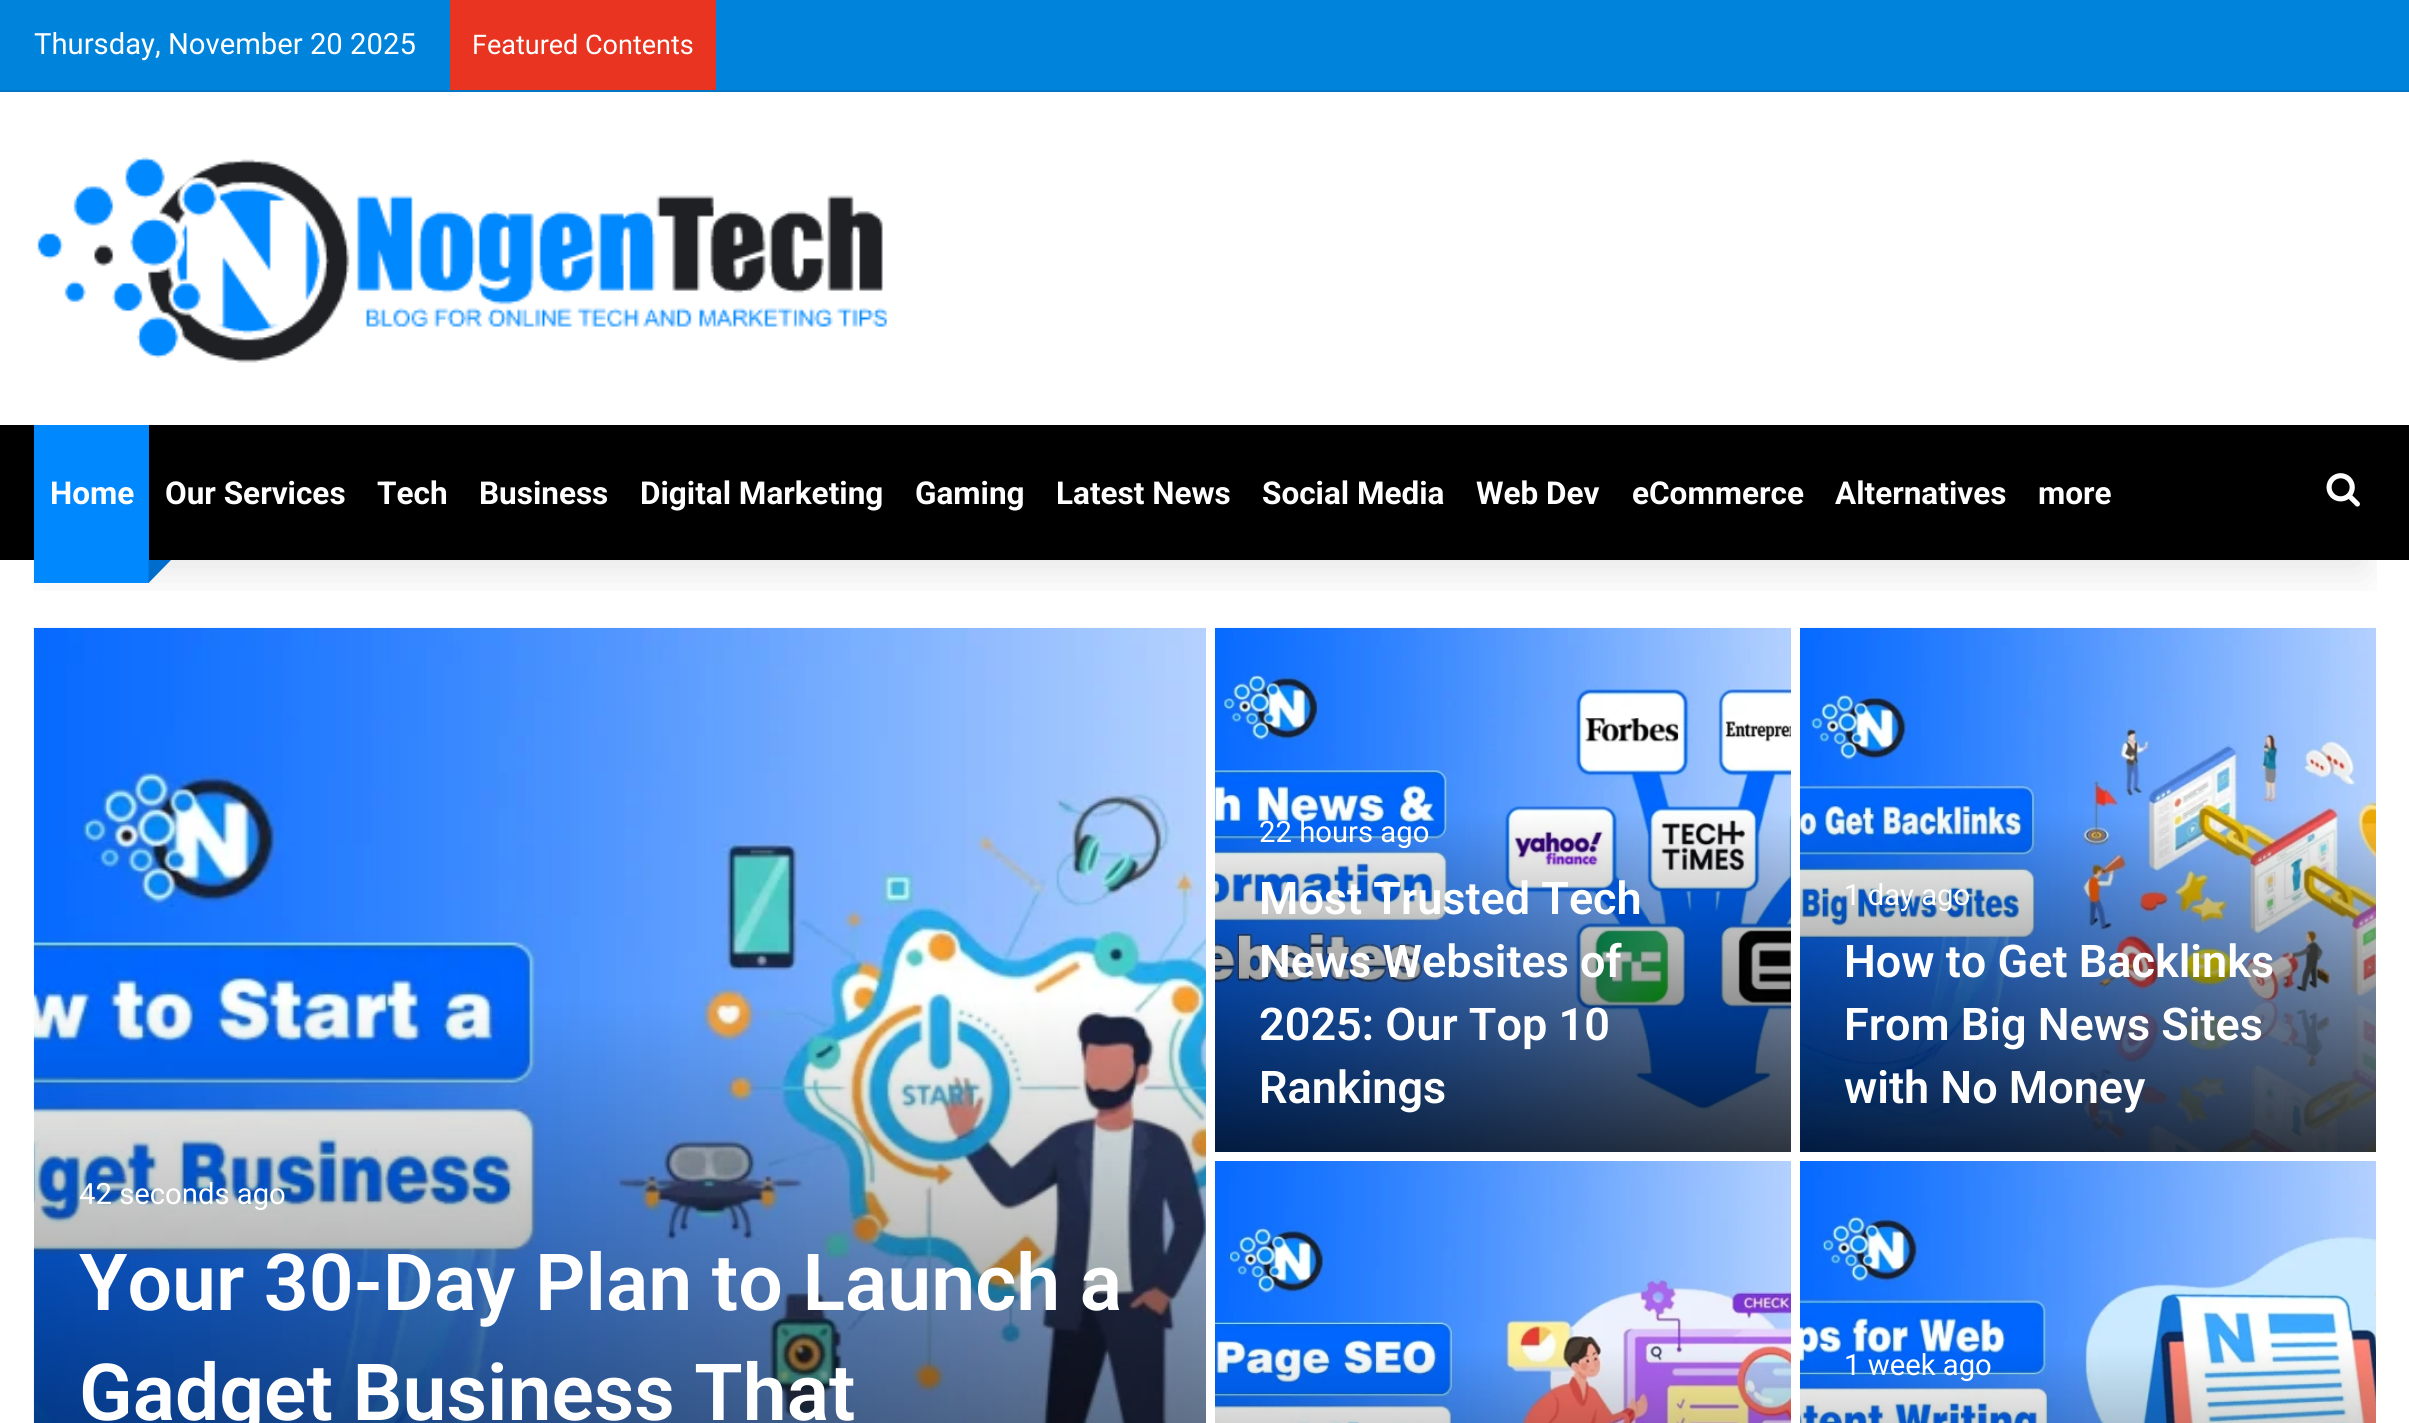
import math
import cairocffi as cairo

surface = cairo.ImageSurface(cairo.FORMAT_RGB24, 2409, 1423)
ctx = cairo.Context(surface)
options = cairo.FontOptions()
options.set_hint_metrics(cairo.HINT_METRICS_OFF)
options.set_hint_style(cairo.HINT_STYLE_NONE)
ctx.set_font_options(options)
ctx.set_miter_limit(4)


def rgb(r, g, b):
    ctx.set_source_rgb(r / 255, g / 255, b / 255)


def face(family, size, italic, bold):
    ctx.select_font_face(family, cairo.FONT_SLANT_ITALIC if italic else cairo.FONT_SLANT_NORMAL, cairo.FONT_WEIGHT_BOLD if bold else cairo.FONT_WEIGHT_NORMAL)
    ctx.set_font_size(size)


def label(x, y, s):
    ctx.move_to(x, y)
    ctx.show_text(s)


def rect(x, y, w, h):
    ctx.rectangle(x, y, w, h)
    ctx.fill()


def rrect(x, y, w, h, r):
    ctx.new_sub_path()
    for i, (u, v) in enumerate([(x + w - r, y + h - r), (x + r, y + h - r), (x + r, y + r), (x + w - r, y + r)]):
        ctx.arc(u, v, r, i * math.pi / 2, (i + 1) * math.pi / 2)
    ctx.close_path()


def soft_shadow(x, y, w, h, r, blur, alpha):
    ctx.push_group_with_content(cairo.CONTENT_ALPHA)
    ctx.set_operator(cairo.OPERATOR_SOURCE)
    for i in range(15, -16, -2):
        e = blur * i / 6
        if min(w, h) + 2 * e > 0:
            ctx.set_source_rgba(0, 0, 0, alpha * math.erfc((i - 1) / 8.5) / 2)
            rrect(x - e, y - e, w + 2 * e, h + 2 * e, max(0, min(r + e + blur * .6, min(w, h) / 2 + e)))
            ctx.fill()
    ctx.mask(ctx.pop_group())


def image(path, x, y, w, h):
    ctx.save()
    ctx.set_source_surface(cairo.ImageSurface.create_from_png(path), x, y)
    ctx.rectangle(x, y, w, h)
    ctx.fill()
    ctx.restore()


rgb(255, 255, 255)
ctx.paint()
image('image2.png', 1215, 627, 576, 525)
image('image3.png', 1800, 627, 576, 525)
image('image4.png', 33, 627, 1173, 796)
ctx.save()
ctx.rectangle(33, 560, 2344, 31)
ctx.clip()
rgb(0, 0, 0)
soft_shadow(45, 101, 2320, 471, 0, 22.5, 0.1)
ctx.restore()
rgb(0, 131, 219)
rect(0, 0, 2409, 90)
rgb(0, 118, 197)
rect(0, 90, 2409, 2)
face('Roboto', 29.25, 0, 0)
rgb(255, 255, 255)
label(34, 54, 'Thursday, November 20 2025')
rgb(232, 52, 32)
rect(450, 0, 266, 90)
face('Roboto', 27, 0, 0)
rgb(255, 255, 255)
label(472, 54, 'Featured Contents')
image('image0.png', 37, 157, 851, 206)
rgb(0, 0, 0)
rect(0, 425, 2409, 135)
rgb(0, 136, 255)
rect(34, 425, 115, 158)
face('Roboto', 31.5, 0, 1)
rgb(255, 255, 255)
label(50, 504, 'Home')
rgb(0, 109, 204)
ctx.new_path()
ctx.move_to(148.5, 560)
ctx.line_to(171, 560)
ctx.line_to(148.5, 583)
ctx.close_path()
ctx.fill()
rgb(255, 255, 255)
label(165, 504, 'Our Services')
label(377, 504, 'Tech')
label(479, 504, 'Business')
label(640, 504, 'Digital Marketing')
label(915, 504, 'Gaming')
label(1056, 504, 'Latest News')
label(1262, 504, 'Social Media')
label(1476, 504, 'Web Dev')
label(1632, 504, 'eCommerce')
label(1835, 504, 'Alternatives')
label(2038, 504, 'more')
image('image1.png', 2326, 473, 34, 34)
face('Roboto', 29.25, 0, 0)
label(1259, 842, '22 hours ago')
face('Roboto SemiBold', 45, 0, 0)
label(1259, 914, 'Most Trusted Tech')
label(1259, 977, 'News Websites of')
label(1259, 1040, '2025: Our Top 10')
label(1259, 1103, 'Rankings')
face('Roboto', 29.25, 0, 0)
label(1844, 905, '1 day ago')
face('Roboto SemiBold', 45, 0, 0)
label(1844, 977, 'How to Get Backlinks')
label(1844, 1040, 'From Big News Sites')
label(1844, 1103, 'with No Money')
face('Roboto', 29.25, 0, 0)
label(79, 1204, '42 seconds ago')
face('Roboto SemiBold', 78.75, 0, 0)
label(79, 1310, 'Your 30-Day Plan to Launch a')
label(79, 1420, 'Gadget Business That')
image('image5.png', 1215, 1161, 576, 262)
image('image6.png', 1800, 1161, 576, 262)
face('Roboto', 29.25, 0, 0)
label(1844, 1375, '1 week ago')
surface.write_to_png('render.png')
